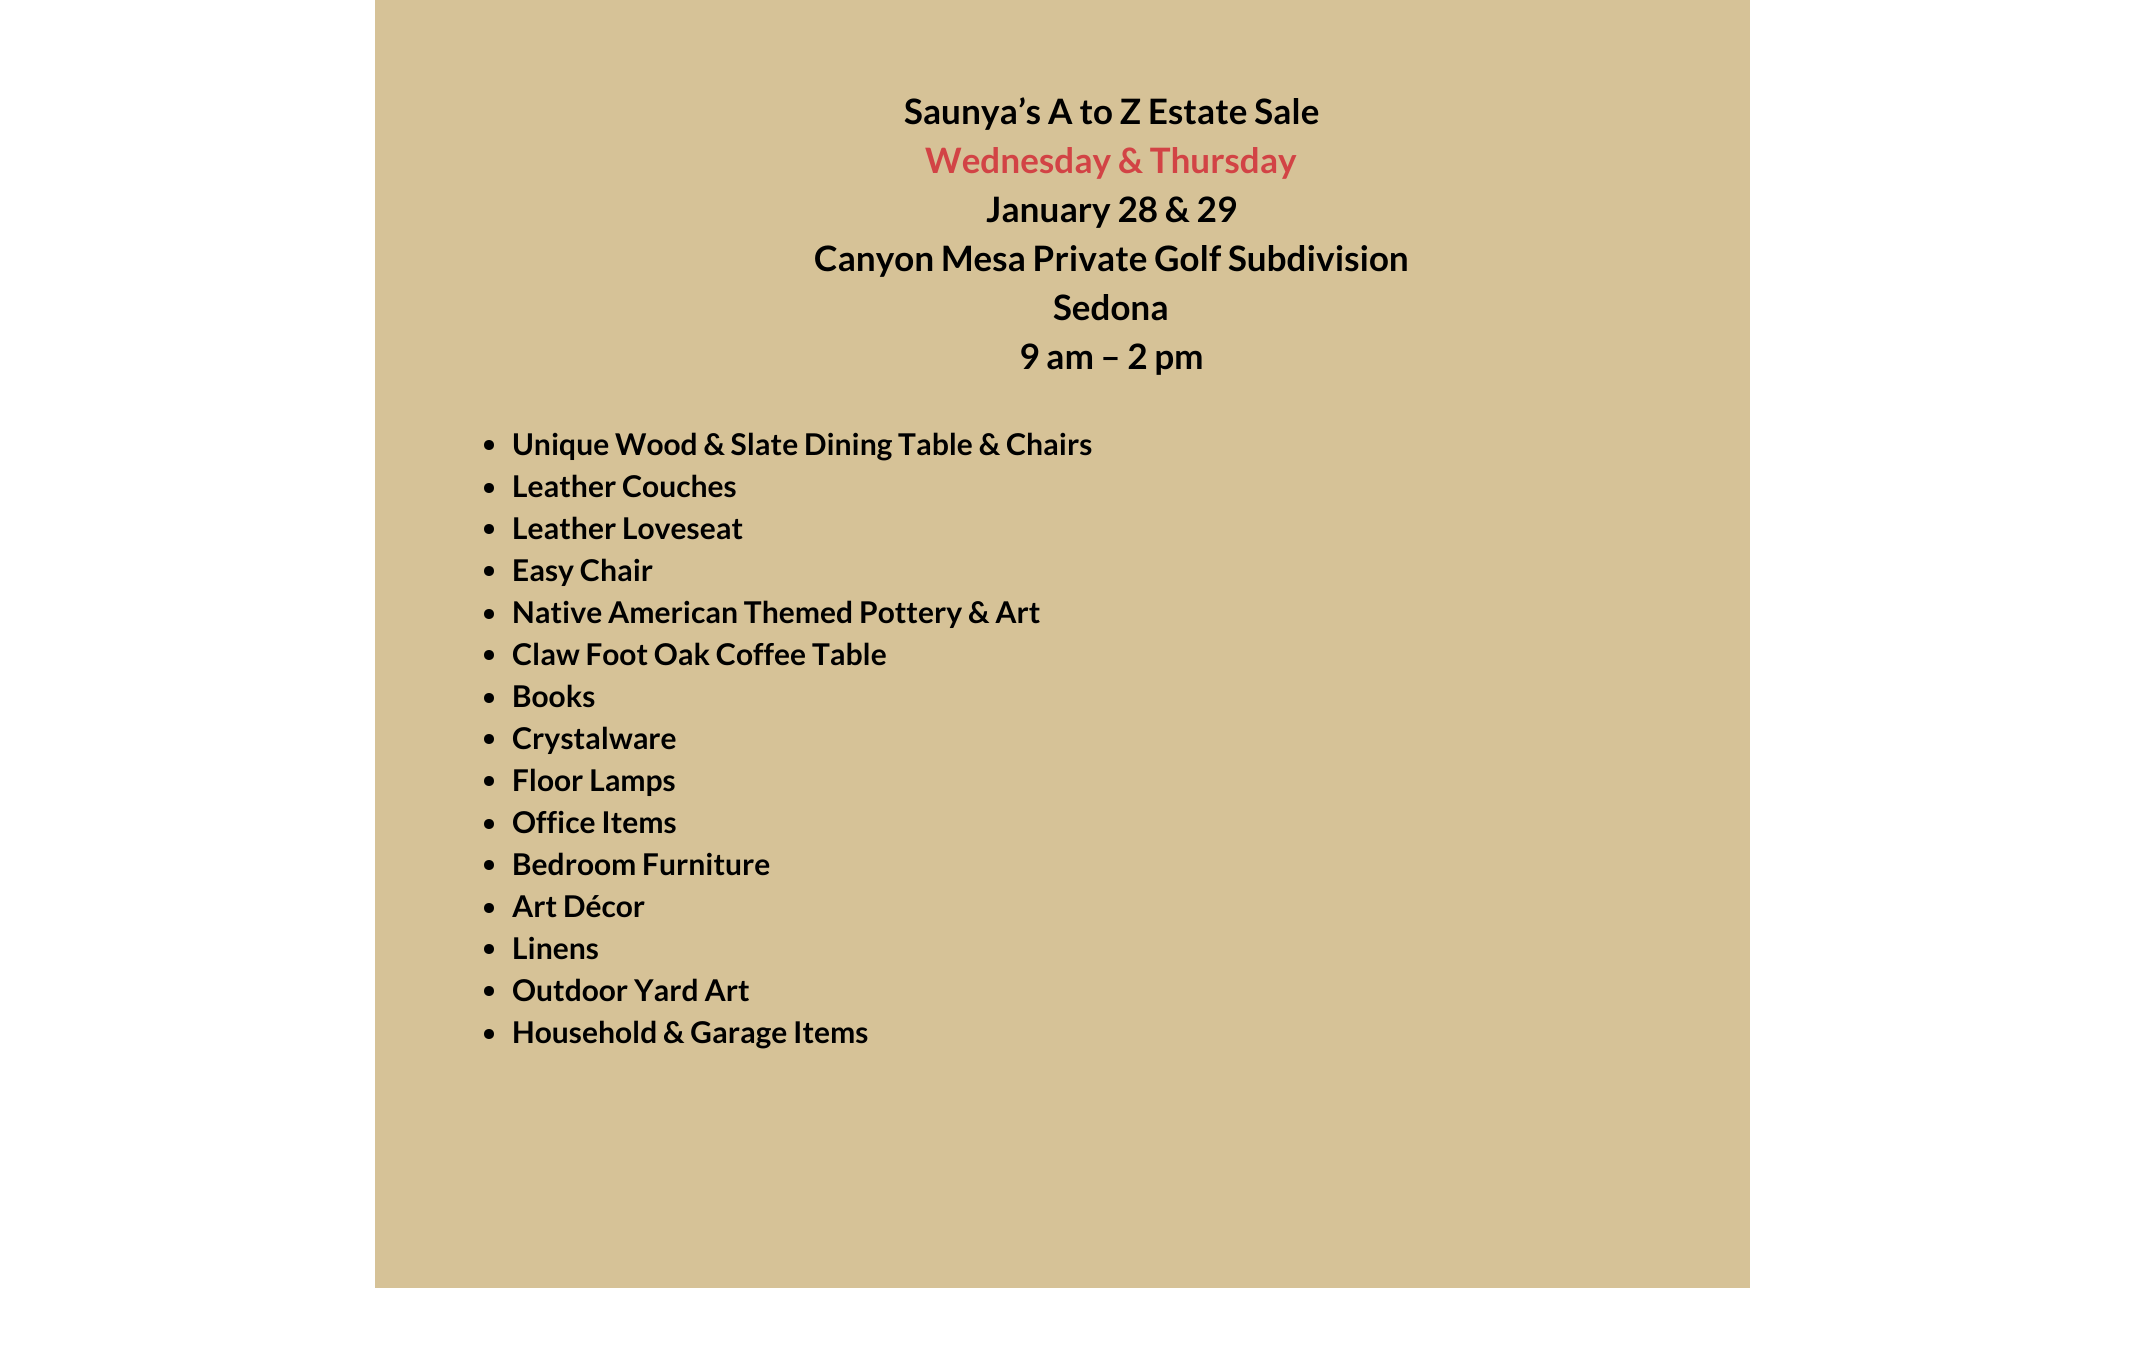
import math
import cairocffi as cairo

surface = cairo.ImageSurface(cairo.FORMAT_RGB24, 2141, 1346)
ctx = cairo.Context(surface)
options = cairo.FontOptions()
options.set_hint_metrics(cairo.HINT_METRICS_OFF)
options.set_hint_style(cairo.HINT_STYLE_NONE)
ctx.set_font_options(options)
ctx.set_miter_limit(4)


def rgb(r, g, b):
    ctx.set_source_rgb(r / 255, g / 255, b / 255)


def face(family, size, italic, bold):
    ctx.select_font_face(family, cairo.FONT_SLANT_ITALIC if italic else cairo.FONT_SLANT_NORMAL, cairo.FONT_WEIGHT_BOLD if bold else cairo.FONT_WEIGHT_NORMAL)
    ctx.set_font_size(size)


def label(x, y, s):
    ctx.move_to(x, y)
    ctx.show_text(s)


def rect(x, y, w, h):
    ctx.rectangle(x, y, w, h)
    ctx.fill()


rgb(255, 255, 255)
ctx.paint()
rgb(214, 194, 151)
rect(375, 0, 1375, 1288)
face('Lato', 35, 0, 1)
rgb(0, 0, 0)
label(904, 124, 'Saunya’s A to Z Estate Sale')
rgb(210, 67, 69)
label(925, 173, 'Wednesday & Thursday')
rgb(0, 0, 0)
label(986, 222, 'January 28 & 29')
label(814, 271, 'Canyon Mesa Private Golf Subdivision')
label(1053, 320, 'Sedona')
label(1019, 369, '9 am – 2 pm')
ctx.new_path()
ctx.arc(489, 445, 5, 0, 2 * math.pi)
ctx.fill()
face('Lato', 30, 0, 1)
label(512, 455, 'Unique Wood & Slate Dining Table & Chairs')
ctx.new_path()
ctx.arc(489, 488, 5, 0, 2 * math.pi)
ctx.fill()
label(512, 497, 'Leather Couches')
ctx.new_path()
ctx.arc(489, 529, 5, 0, 2 * math.pi)
ctx.fill()
label(512, 539, 'Leather Loveseat')
ctx.new_path()
ctx.arc(489, 571, 5, 0, 2 * math.pi)
ctx.fill()
label(512, 581, 'Easy Chair')
ctx.new_path()
ctx.arc(489, 614, 5, 0, 2 * math.pi)
ctx.fill()
label(512, 623, 'Native American Themed Pottery & Art')
ctx.new_path()
ctx.arc(489, 655, 5, 0, 2 * math.pi)
ctx.fill()
label(512, 665, 'Claw Foot Oak Coffee Table')
ctx.new_path()
ctx.arc(489, 698, 5, 0, 2 * math.pi)
ctx.fill()
label(512, 707, 'Books')
ctx.new_path()
ctx.arc(489, 739, 5, 0, 2 * math.pi)
ctx.fill()
label(512, 749, 'Crystalware')
ctx.new_path()
ctx.arc(489, 781, 5, 0, 2 * math.pi)
ctx.fill()
label(512, 791, 'Floor Lamps')
ctx.new_path()
ctx.arc(489, 824, 5, 0, 2 * math.pi)
ctx.fill()
label(512, 833, 'Office Items')
ctx.new_path()
ctx.arc(489, 865, 5, 0, 2 * math.pi)
ctx.fill()
label(512, 875, 'Bedroom Furniture')
ctx.new_path()
ctx.arc(489, 908, 5, 0, 2 * math.pi)
ctx.fill()
label(512, 917, 'Art Décor')
ctx.new_path()
ctx.arc(489, 949, 5, 0, 2 * math.pi)
ctx.fill()
label(512, 959, 'Linens')
ctx.new_path()
ctx.arc(489, 991, 5, 0, 2 * math.pi)
ctx.fill()
label(512, 1001, 'Outdoor Yard Art')
ctx.new_path()
ctx.arc(489, 1034, 5, 0, 2 * math.pi)
ctx.fill()
label(512, 1043, 'Household & Garage Items')
surface.write_to_png('render.png')
